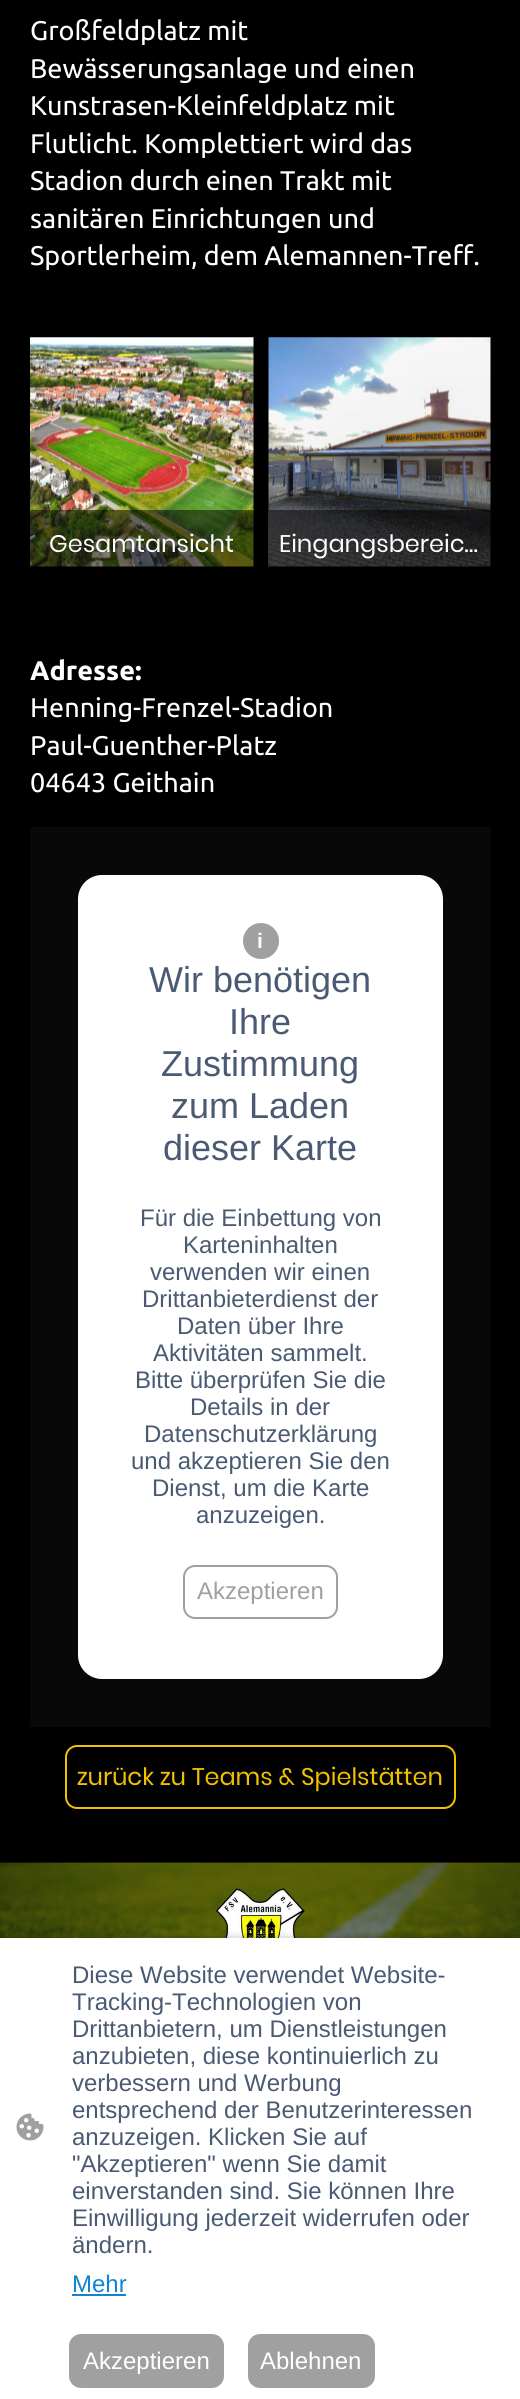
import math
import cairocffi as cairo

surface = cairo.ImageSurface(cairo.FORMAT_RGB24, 520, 2399)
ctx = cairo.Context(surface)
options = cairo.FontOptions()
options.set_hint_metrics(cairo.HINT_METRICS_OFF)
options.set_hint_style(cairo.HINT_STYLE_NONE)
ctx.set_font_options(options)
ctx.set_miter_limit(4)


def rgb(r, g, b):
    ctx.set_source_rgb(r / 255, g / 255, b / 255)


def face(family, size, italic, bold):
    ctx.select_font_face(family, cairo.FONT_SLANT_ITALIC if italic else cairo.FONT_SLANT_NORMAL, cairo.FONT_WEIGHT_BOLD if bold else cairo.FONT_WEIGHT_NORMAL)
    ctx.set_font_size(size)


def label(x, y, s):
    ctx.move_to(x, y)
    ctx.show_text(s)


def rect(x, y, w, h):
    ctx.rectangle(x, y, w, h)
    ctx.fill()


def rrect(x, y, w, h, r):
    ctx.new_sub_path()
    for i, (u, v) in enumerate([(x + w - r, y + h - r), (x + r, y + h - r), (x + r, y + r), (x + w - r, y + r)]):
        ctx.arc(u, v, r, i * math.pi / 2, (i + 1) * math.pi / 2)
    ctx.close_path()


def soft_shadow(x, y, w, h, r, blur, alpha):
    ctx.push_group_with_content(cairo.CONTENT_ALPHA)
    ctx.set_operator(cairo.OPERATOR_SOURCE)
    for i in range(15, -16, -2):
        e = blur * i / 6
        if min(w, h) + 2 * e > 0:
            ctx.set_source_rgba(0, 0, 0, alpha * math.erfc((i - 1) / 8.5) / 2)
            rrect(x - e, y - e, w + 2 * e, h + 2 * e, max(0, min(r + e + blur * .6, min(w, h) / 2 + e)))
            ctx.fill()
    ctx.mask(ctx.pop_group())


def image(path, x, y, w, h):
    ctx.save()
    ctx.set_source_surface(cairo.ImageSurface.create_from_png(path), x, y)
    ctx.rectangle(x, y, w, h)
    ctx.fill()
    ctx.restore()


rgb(0, 0, 0)
ctx.paint()
face('Ubuntu', 27, 0, 0)
rgb(255, 255, 255)
label(30, 40, 'Großfeldplatz mit')
label(30, 78, 'Bewässerungsanlage und einen')
label(30, 115, 'Kunstrasen-Kleinfeldplatz mit')
label(30, 153, 'Flutlicht. Komplettiert wird das')
label(30, 190, 'Stadion durch einen Trakt mit')
label(30, 228, 'sanitären Einrichtungen und')
label(30, 265, 'Sportlerheim, dem Alemannen-Treff.')
image('image0.png', 30, 337, 224, 230)
ctx.set_source_rgba(0, 0, 0, 0.5)
rect(30, 510, 224, 57)
face('Poppins', 24, 0, 0)
rgb(255, 255, 255)
label(49, 552, 'Gesamtansicht')
image('image1.png', 268, 337, 223, 230)
ctx.set_source_rgba(0, 0, 0, 0.5)
rect(269, 510, 222, 57)
rgb(255, 255, 255)
label(279, 552, 'Eingangsbereic…')
face('Ubuntu', 27, 0, 1)
label(30, 680, 'Adresse:')
face('Ubuntu', 27, 0, 0)
label(30, 717, 'Henning-Frenzel-Stadion')
label(30, 755, 'Paul-Guenther-Platz')
label(30, 792, '04643 Geithain')
rgb(8, 8, 8)
rect(30, 827, 461, 900)
rgb(255, 255, 255)
rrect(78, 875, 365, 804, 24)
ctx.fill()
rgb(160, 160, 160)
ctx.arc(261, 941, 18, 0, 2 * math.pi)
ctx.fill()
face('Liberation Sans', 21, 0, 1)
rgb(255, 255, 255)
label(257, 948, 'i')
face('Liberation Sans', 36, 0, 0)
rgb(74, 90, 115)
label(149, 992, 'Wir benötigen')
label(229, 1034, 'Ihre')
label(161, 1076, 'Zustimmung')
label(171, 1118, 'zum Laden')
label(163, 1160, 'dieser Karte')
face('Liberation Sans', 24, 0, 0)
label(140, 1226, 'Für die Einbettung von')
label(183, 1253, 'Karteninhalten')
label(150, 1280, 'verwenden wir einen')
label(142, 1307, 'Drittanbieterdienst der')
label(177, 1334, 'Daten über Ihre')
label(153, 1361, 'Aktivitäten sammelt.')
label(135, 1388, 'Bitte überprüfen Sie die')
label(190, 1415, 'Details in der')
label(144, 1442, 'Datenschutzerklärung')
label(131, 1469, 'und akzeptieren Sie den')
label(152, 1496, 'Dienst, um die Karte')
label(196, 1523, 'anzuzeigen.')
rrect(184, 1566, 153, 52, 11)
rgb(160, 160, 160)
ctx.stroke()
label(197, 1599, 'Akzeptieren')
rrect(66, 1746, 389, 62, 11)
rgb(242, 194, 0)
ctx.stroke()
face('Poppins', 24, 0, 0)
label(77, 1785, 'zurück zu Teams & Spielstätten')
image('image2.png', 0, 1862, 520, 76)
image('image3.png', 216, 1888, 89, 50)
rgb(0, 0, 0)
soft_shadow(9, 1943, 503, 444, 0, 6, 0.63)
rgb(255, 255, 255)
rect(0, 1938, 520, 461)
image('image4.png', 16, 2113, 28, 28)
face('Liberation Sans', 24, 0, 0)
rgb(74, 90, 115)
label(72, 1983, 'Diese Website verwendet Website-')
label(72, 2010, 'Tracking-Technologien von')
label(72, 2037, 'Drittanbietern, um Dienstleistungen')
label(72, 2064, 'anzubieten, diese kontinuierlich zu')
label(72, 2091, 'verbessern und Werbung')
label(72, 2118, 'entsprechend der Benutzerinteressen')
label(72, 2145, 'anzuzeigen. Klicken Sie auf')
label(72, 2172, '"Akzeptieren" wenn Sie damit')
label(72, 2199, 'einverstanden sind. Sie können Ihre')
label(72, 2226, 'Einwilligung jederzeit widerrufen oder')
label(72, 2253, 'ändern.')
rgb(17, 131, 209)
label(72, 2292, 'Mehr')
rect(72, 2294, 54, 2)
rgb(160, 160, 160)
rrect(70, 2335, 153, 52, 11)
ctx.fill_preserve()
ctx.stroke()
rgb(255, 255, 255)
label(83, 2369, 'Akzeptieren')
rgb(160, 160, 160)
rrect(249, 2335, 125, 52, 11)
ctx.fill_preserve()
ctx.stroke()
rgb(255, 255, 255)
label(260, 2369, 'Ablehnen')
surface.write_to_png('render.png')
